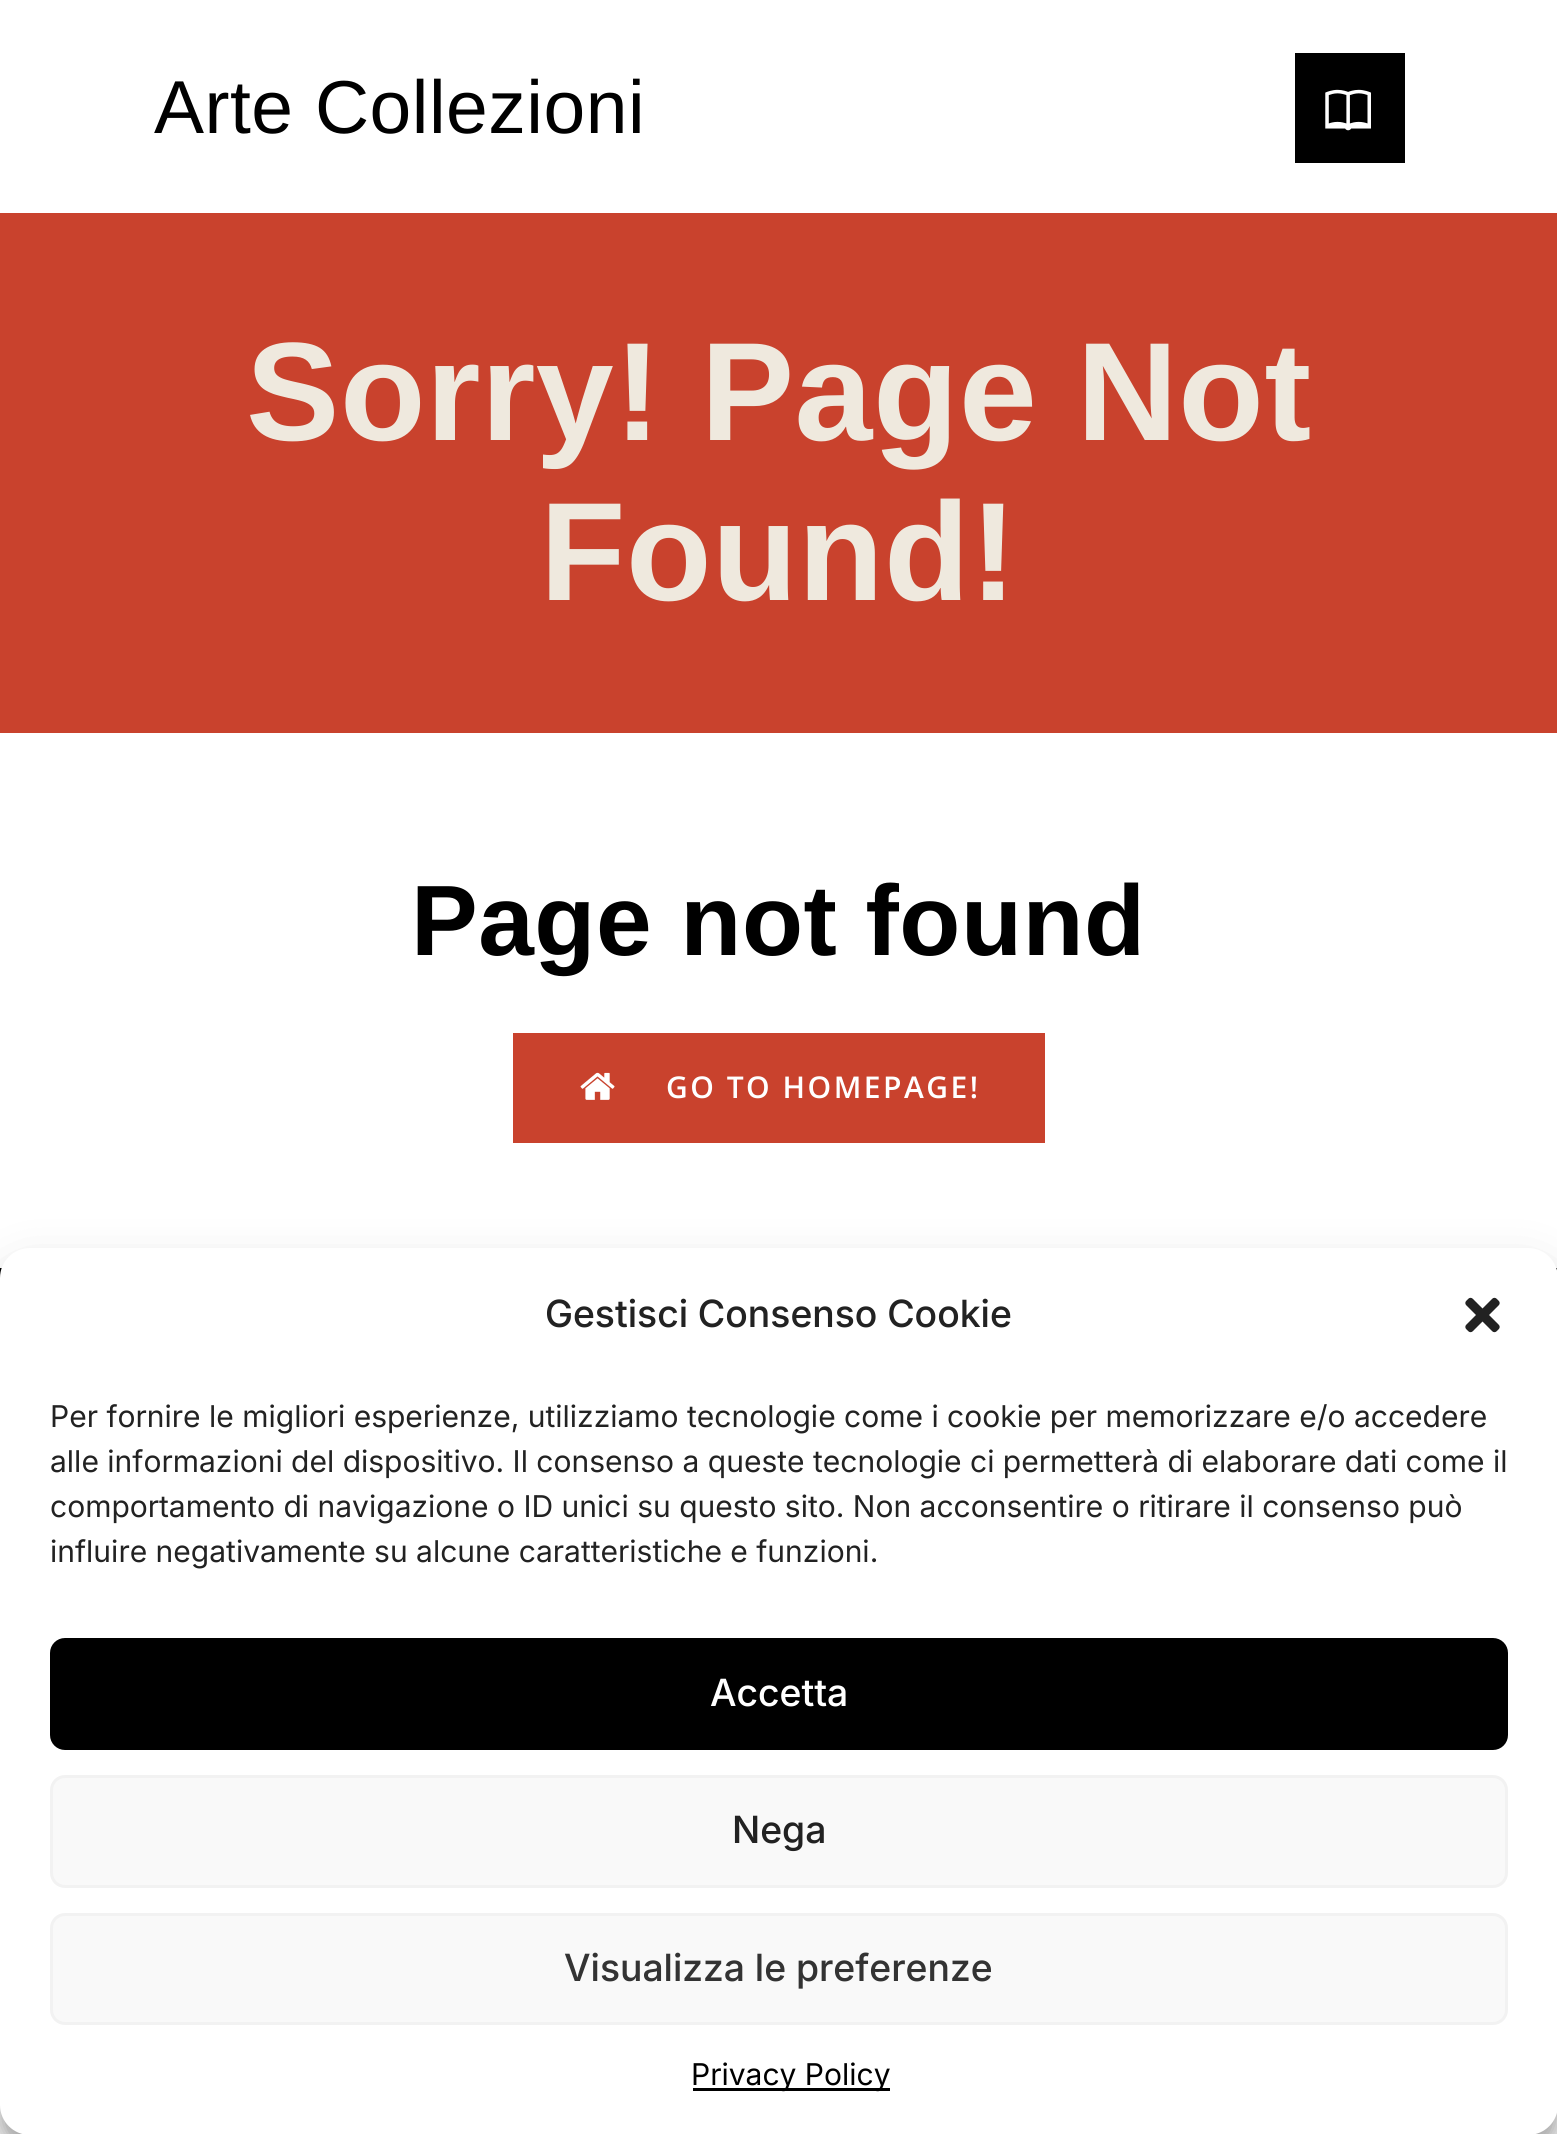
import math
import cairocffi as cairo

surface = cairo.ImageSurface(cairo.FORMAT_RGB24, 1557, 2134)
ctx = cairo.Context(surface)
options = cairo.FontOptions()
options.set_hint_metrics(cairo.HINT_METRICS_OFF)
options.set_hint_style(cairo.HINT_STYLE_NONE)
ctx.set_font_options(options)
ctx.set_miter_limit(4)


def rgb(r, g, b):
    ctx.set_source_rgb(r / 255, g / 255, b / 255)


def face(family, size, italic, bold):
    ctx.select_font_face(family, cairo.FONT_SLANT_ITALIC if italic else cairo.FONT_SLANT_NORMAL, cairo.FONT_WEIGHT_BOLD if bold else cairo.FONT_WEIGHT_NORMAL)
    ctx.set_font_size(size)


def label(x, y, s):
    ctx.move_to(x, y)
    ctx.show_text(s)


def tracked(x, y, s, letter, word):
    ctx.move_to(x, y)
    for ch in s:
        ctx.show_text(ch)
        ctx.rel_move_to(letter + word * (ch == ' '), 0)


def rect(x, y, w, h):
    ctx.rectangle(x, y, w, h)
    ctx.fill()


def rrect(x, y, w, h, r):
    ctx.new_sub_path()
    for i, (u, v) in enumerate([(x + w - r, y + h - r), (x + r, y + h - r), (x + r, y + r), (x + w - r, y + r)]):
        ctx.arc(u, v, r, i * math.pi / 2, (i + 1) * math.pi / 2)
    ctx.close_path()


def soft_shadow(x, y, w, h, r, blur, alpha):
    ctx.push_group_with_content(cairo.CONTENT_ALPHA)
    ctx.set_operator(cairo.OPERATOR_SOURCE)
    for i in range(15, -16, -2):
        e = blur * i / 6
        if min(w, h) + 2 * e > 0:
            ctx.set_source_rgba(0, 0, 0, alpha * math.erfc((i - 1) / 8.5) / 2)
            rrect(x - e, y - e, w + 2 * e, h + 2 * e, max(0, min(r + e + blur * .6, min(w, h) / 2 + e)))
            ctx.fill()
    ctx.mask(ctx.pop_group())


def image(path, x, y, w, h):
    ctx.save()
    ctx.set_source_surface(cairo.ImageSurface.create_from_png(path), x, y)
    ctx.rectangle(x, y, w, h)
    ctx.fill()
    ctx.restore()


rgb(255, 255, 255)
ctx.paint()
face('Liberation Sans', 75, 0, 0)
rgb(0, 0, 0)
tracked(154, 133, 'Arte Collezioni', 0.5, 0)
rect(1295, 53, 110, 110)
image('image0.png', 1325, 89, 46, 42)
rgb(201, 66, 45)
rect(0, 213, 1557, 520)
face('Liberation Sans', 140, 0, 1)
rgb(239, 233, 222)
tracked(246, 440, 'Sorry! Page Not', 0.5, 0)
tracked(540, 600, 'Found!', 0.5, 0)
face('Liberation Sans', 100, 0, 1)
rgb(0, 0, 0)
tracked(411, 955, 'Page not found', 0.5, 0)
rgb(201, 66, 45)
rect(513, 1033, 532, 110)
image('image1.png', 580, 1072, 35, 28)
face('Open Sans SemiBold', 30, 0, 0)
rgb(255, 255, 255)
tracked(666, 1098, 'GO TO HOMEPAGE!', 2.5, 0)
rgb(0, 0, 0)
rect(0, 1268, 1557, 10)
rgb(0, 0, 0)
soft_shadow(0, 1263, 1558, 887, 30, 7.5, 0.23)
soft_shadow(0, 1273, 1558, 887, 30, 25, 0.19)
rgb(255, 255, 255)
rrect(0, 1248, 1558, 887, 30)
ctx.fill()
face('Inter Medium', 37.5, 0, 0)
rgb(34, 34, 34)
label(545, 1327, 'Gestisci Consenso Cookie')
image('image2.png', 1465, 1297, 35, 36)
face('Inter', 30, 0, 0)
label(50, 1427, 'Per fornire le migliori esperienze, utilizziamo tecnologie come i cookie per memorizzare e/o accedere')
label(50, 1472, 'alle informazioni del dispositivo. Il consenso a queste tecnologie ci permetterà di elaborare dati come il')
label(50, 1517, 'comportamento di navigazione o ID unici su questo sito. Non acconsentire o ritirare il consenso può')
label(50, 1562, 'influire negativamente su alcune caratteristiche e funzioni.')
rgb(0, 0, 0)
rrect(51.5, 1639.5, 1455, 109, 13.5)
ctx.fill_preserve()
ctx.set_line_width(3)
ctx.stroke()
face('Inter Medium', 37.5, 0, 0)
rgb(255, 255, 255)
label(710, 1706, 'Accetta')
rgb(249, 249, 249)
rrect(51.5, 1776.5, 1455, 110, 13.5)
ctx.fill_preserve()
rgb(242, 242, 242)
ctx.stroke()
rgb(34, 34, 34)
label(732, 1843, 'Nega')
rgb(249, 249, 249)
rrect(51.5, 1914.5, 1455, 109, 13.5)
ctx.fill_preserve()
rgb(242, 242, 242)
ctx.stroke()
rgb(51, 51, 51)
label(564, 1981, 'Visualizza le preferenze')
rgb(0, 0, 0)
rect(693, 2088, 197, 3)
face('Inter', 30, 0, 0)
label(691, 2085, 'Privacy Policy')
surface.write_to_png('render.png')
